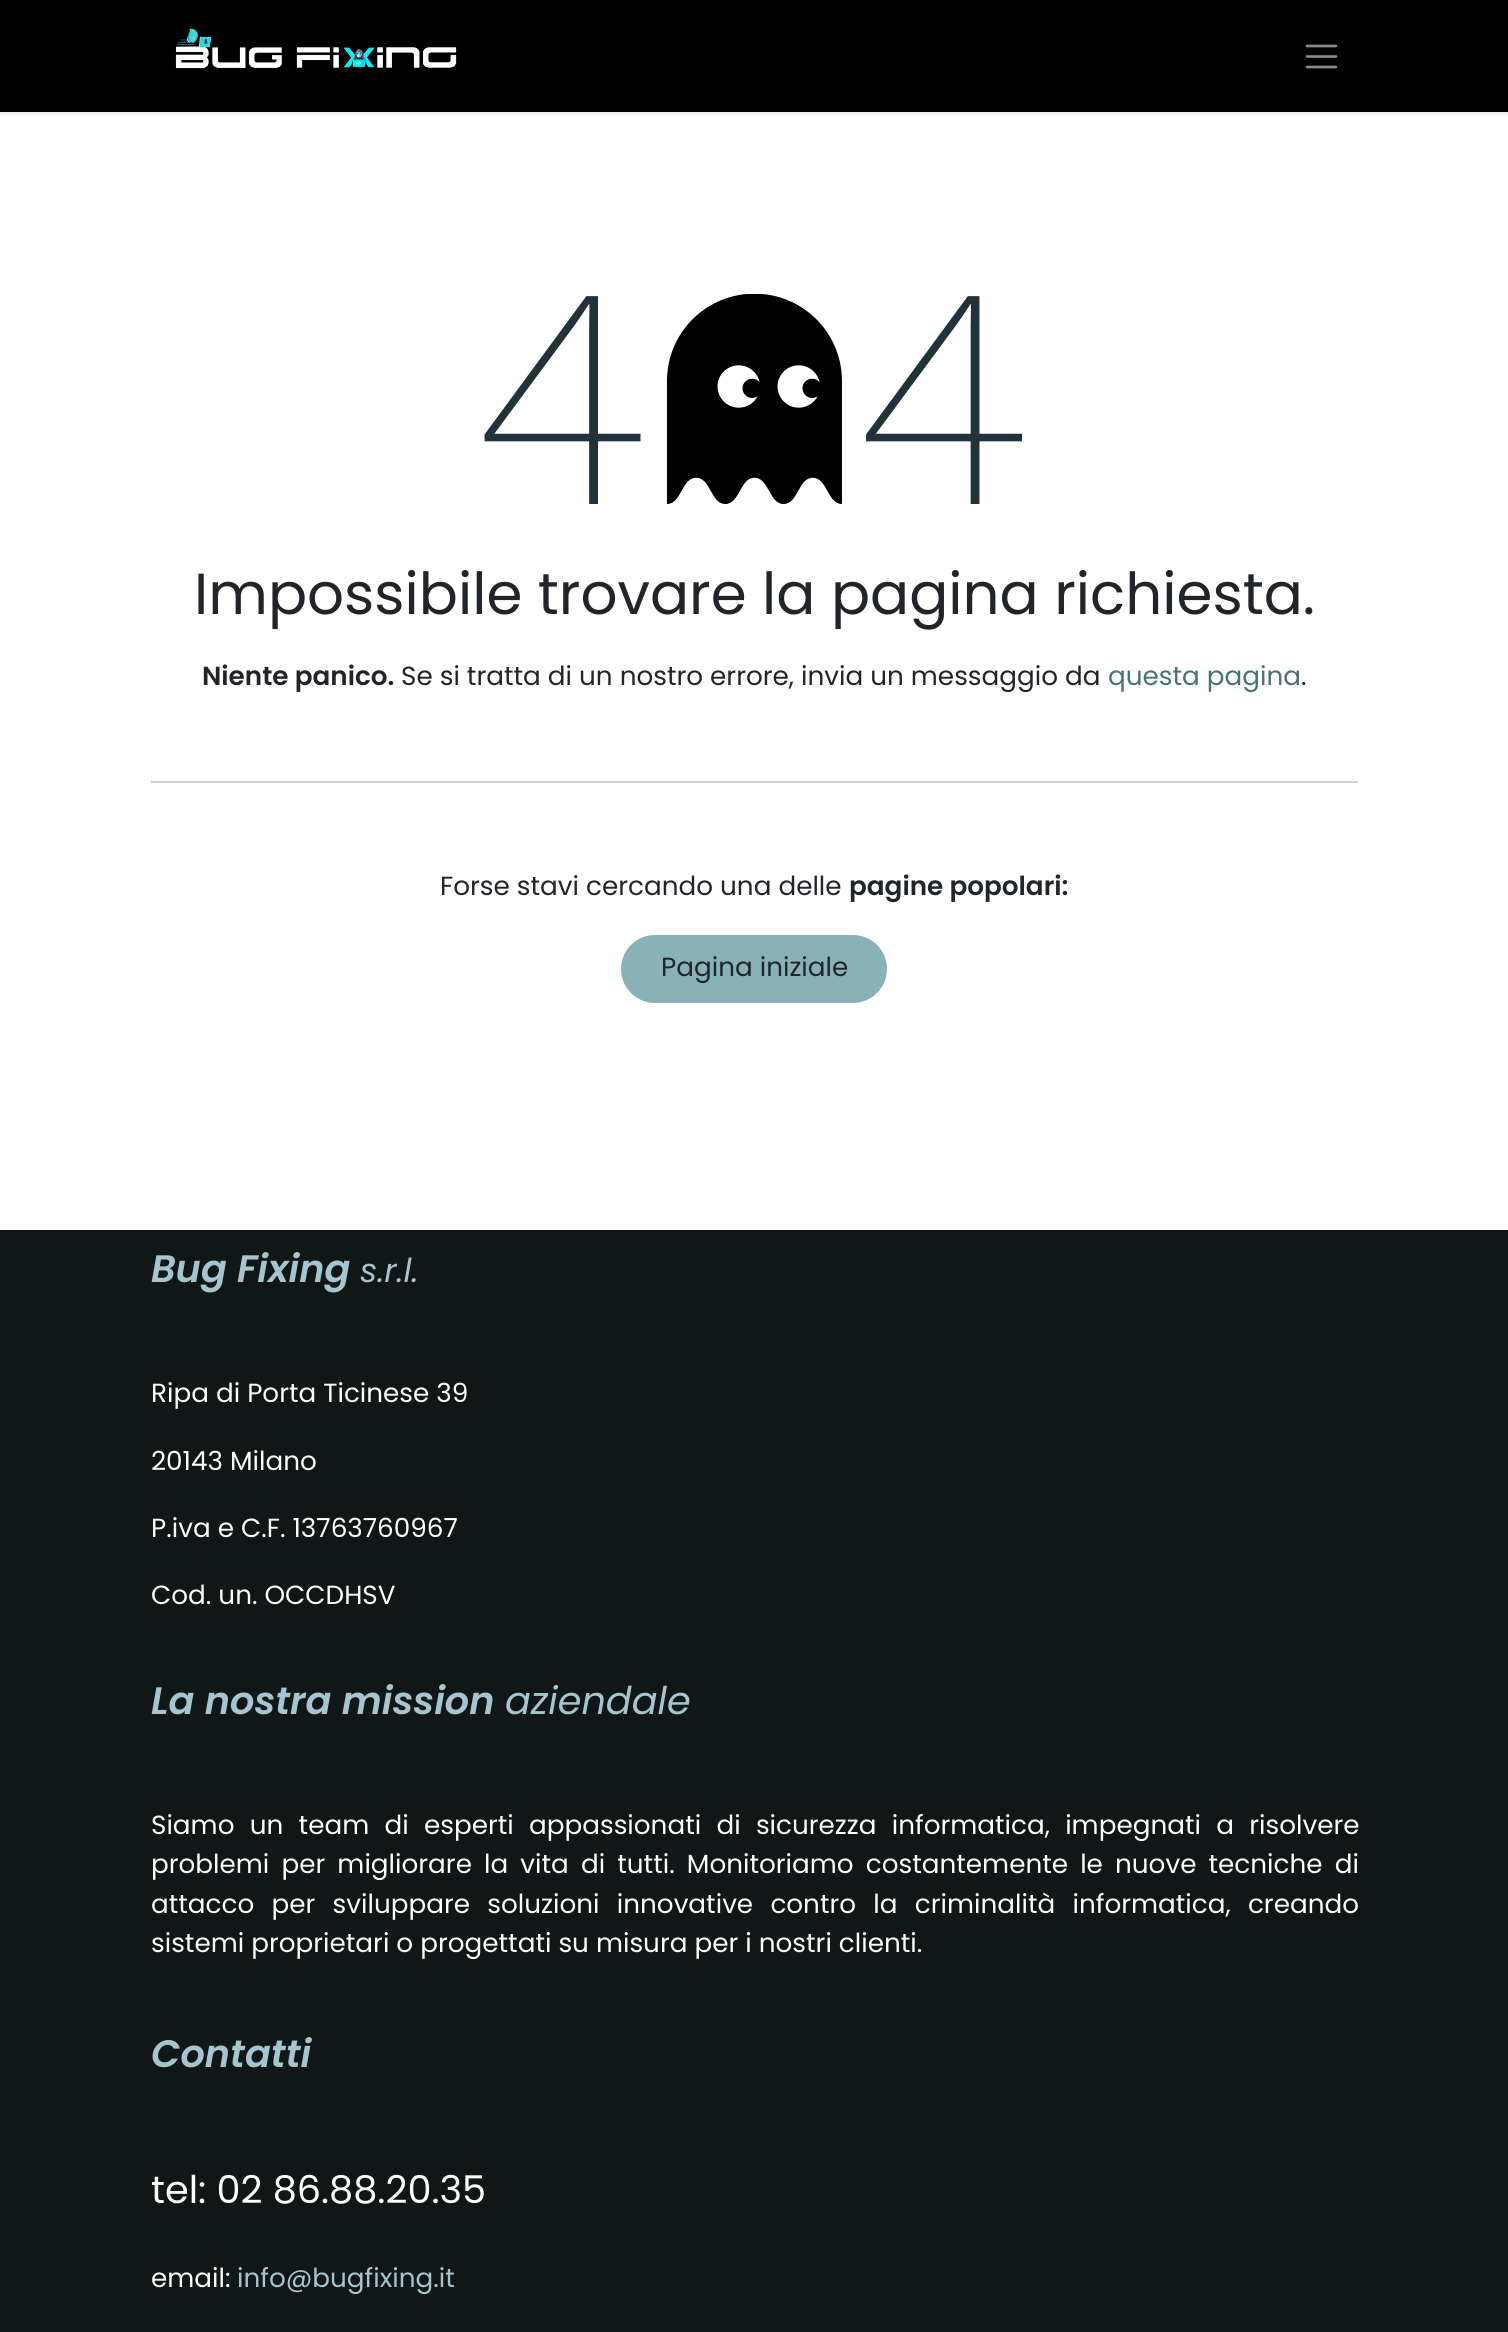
import math
import cairocffi as cairo

surface = cairo.ImageSurface(cairo.FORMAT_RGB24, 1508, 2332)
ctx = cairo.Context(surface)
options = cairo.FontOptions()
options.set_hint_metrics(cairo.HINT_METRICS_OFF)
options.set_hint_style(cairo.HINT_STYLE_NONE)
ctx.set_font_options(options)
ctx.set_miter_limit(4)


def rgb(r, g, b):
    ctx.set_source_rgb(r / 255, g / 255, b / 255)


def face(family, size, italic, bold):
    ctx.select_font_face(family, cairo.FONT_SLANT_ITALIC if italic else cairo.FONT_SLANT_NORMAL, cairo.FONT_WEIGHT_BOLD if bold else cairo.FONT_WEIGHT_NORMAL)
    ctx.set_font_size(size)


def label(x, y, s):
    ctx.move_to(x, y)
    ctx.show_text(s)


def tracked(x, y, s, letter, word):
    ctx.move_to(x, y)
    for ch in s:
        ctx.show_text(ch)
        ctx.rel_move_to(letter + word * (ch == ' '), 0)


def rect(x, y, w, h):
    ctx.rectangle(x, y, w, h)
    ctx.fill()


def rrect(x, y, w, h, r):
    ctx.new_sub_path()
    for i, (u, v) in enumerate([(x + w - r, y + h - r), (x + r, y + h - r), (x + r, y + r), (x + w - r, y + r)]):
        ctx.arc(u, v, r, i * math.pi / 2, (i + 1) * math.pi / 2)
    ctx.close_path()


def soft_shadow(x, y, w, h, r, blur, alpha):
    ctx.push_group_with_content(cairo.CONTENT_ALPHA)
    ctx.set_operator(cairo.OPERATOR_SOURCE)
    for i in range(15, -16, -2):
        e = blur * i / 6
        if min(w, h) + 2 * e > 0:
            ctx.set_source_rgba(0, 0, 0, alpha * math.erfc((i - 1) / 8.5) / 2)
            rrect(x - e, y - e, w + 2 * e, h + 2 * e, max(0, min(r + e + blur * .6, min(w, h) / 2 + e)))
            ctx.fill()
    ctx.mask(ctx.pop_group())


def image(path, x, y, w, h):
    ctx.save()
    ctx.set_source_surface(cairo.ImageSurface.create_from_png(path), x, y)
    ctx.rectangle(x, y, w, h)
    ctx.fill()
    ctx.restore()


rgb(255, 255, 255)
ctx.paint()
rgb(0, 0, 0)
soft_shadow(0, 2, 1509, 112, 0, 2.5, 0.1)
rgb(0, 0, 0)
rect(0, 0, 1508, 112)
image('image0.png', 175, 28, 282, 41)
ctx.new_path()
ctx.move_to(1307, 46)
ctx.line_to(1336, 46)
ctx.move_to(1307, 56.5)
ctx.line_to(1336, 56.5)
ctx.move_to(1307, 67)
ctx.line_to(1336, 67)
rgb(140, 140, 140)
ctx.set_line_width(2.6)
ctx.set_line_cap(cairo.LINE_CAP_ROUND)
ctx.stroke()
image('image1.png', 484, 294, 538, 210)
face('Poppins', 57.9, 0, 0)
rgb(33, 37, 41)
label(194, 614, 'Impossibile trovare la pagina richiesta.')
face('Poppins SemiBold', 26.25, 0, 0)
label(202, 685, 'Niente panico.')
face('Poppins', 26.25, 0, 0)
label(401, 685, 'Se si tratta di un nostro errore, invia un messaggio da')
rgb(73, 114, 118)
label(1108, 685, 'questa pagina')
rgb(33, 37, 41)
label(1301, 685, '.')
rgb(206, 212, 218)
rect(151, 781, 1207, 2)
rgb(33, 37, 41)
label(440, 895, 'Forse stavi cercando una delle')
face('Poppins SemiBold', 26.25, 0, 0)
label(849, 895, 'pagine popolari:')
rgb(137, 178, 182)
rrect(622, 936, 264, 66, 33)
ctx.fill_preserve()
ctx.set_line_width(2)
ctx.set_line_cap(cairo.LINE_CAP_BUTT)
ctx.stroke()
face('Poppins', 26.25, 0, 0)
rgb(33, 37, 41)
label(661, 976, 'Pagina iniziale')
rgb(17, 22, 23)
rect(0, 1230, 1508, 1102)
face('Poppins SemiBold', 38.25, 1, 0)
rgb(165, 198, 206)
label(151, 1282, 'Bug Fixing')
face('Poppins', 33, 1, 0)
label(360, 1282, 's.r.l.')
face('Poppins', 26.25, 0, 0)
rgb(255, 255, 255)
label(151, 1402, 'Ripa di Porta Ticinese 39')
label(151, 1470, '20143 Milano')
label(151, 1537, 'P.iva e C.F. 13763760967')
label(151, 1604, 'Cod. un. OCCDHSV')
face('Poppins SemiBold', 38.25, 1, 0)
rgb(165, 198, 206)
label(151, 1714, 'La nostra mission')
face('Poppins', 38.25, 1, 0)
label(505, 1714, 'aziendale')
face('Poppins', 26.25, 0, 0)
rgb(255, 255, 255)
tracked(151, 1834, 'Siamo un team di esperti appassionati di sicurezza informatica, impegnati a risolvere', 0, 8.25)
tracked(151, 1873, 'problemi per migliorare la vita di tutti. Monitoriamo costantemente le nuove tecniche di', 0, 5.1)
tracked(151, 1913, 'attacco per sviluppare soluzioni innovative contro la criminalità informatica, creando', 0, 10.25)
label(151, 1952, 'sistemi proprietari o progettati su misura per i nostri clienti.')
face('Poppins SemiBold', 38.25, 1, 0)
rgb(165, 198, 206)
label(151, 2067, 'Contatti')
face('Poppins', 38.25, 0, 0)
rgb(255, 255, 255)
label(151, 2203, 'tel: 02 86.88.20.35')
face('Poppins', 26.25, 0, 0)
label(151, 2287, 'email:')
rgb(165, 198, 206)
label(237, 2287, 'info@bugfixing.it')
surface.write_to_png('render.png')
